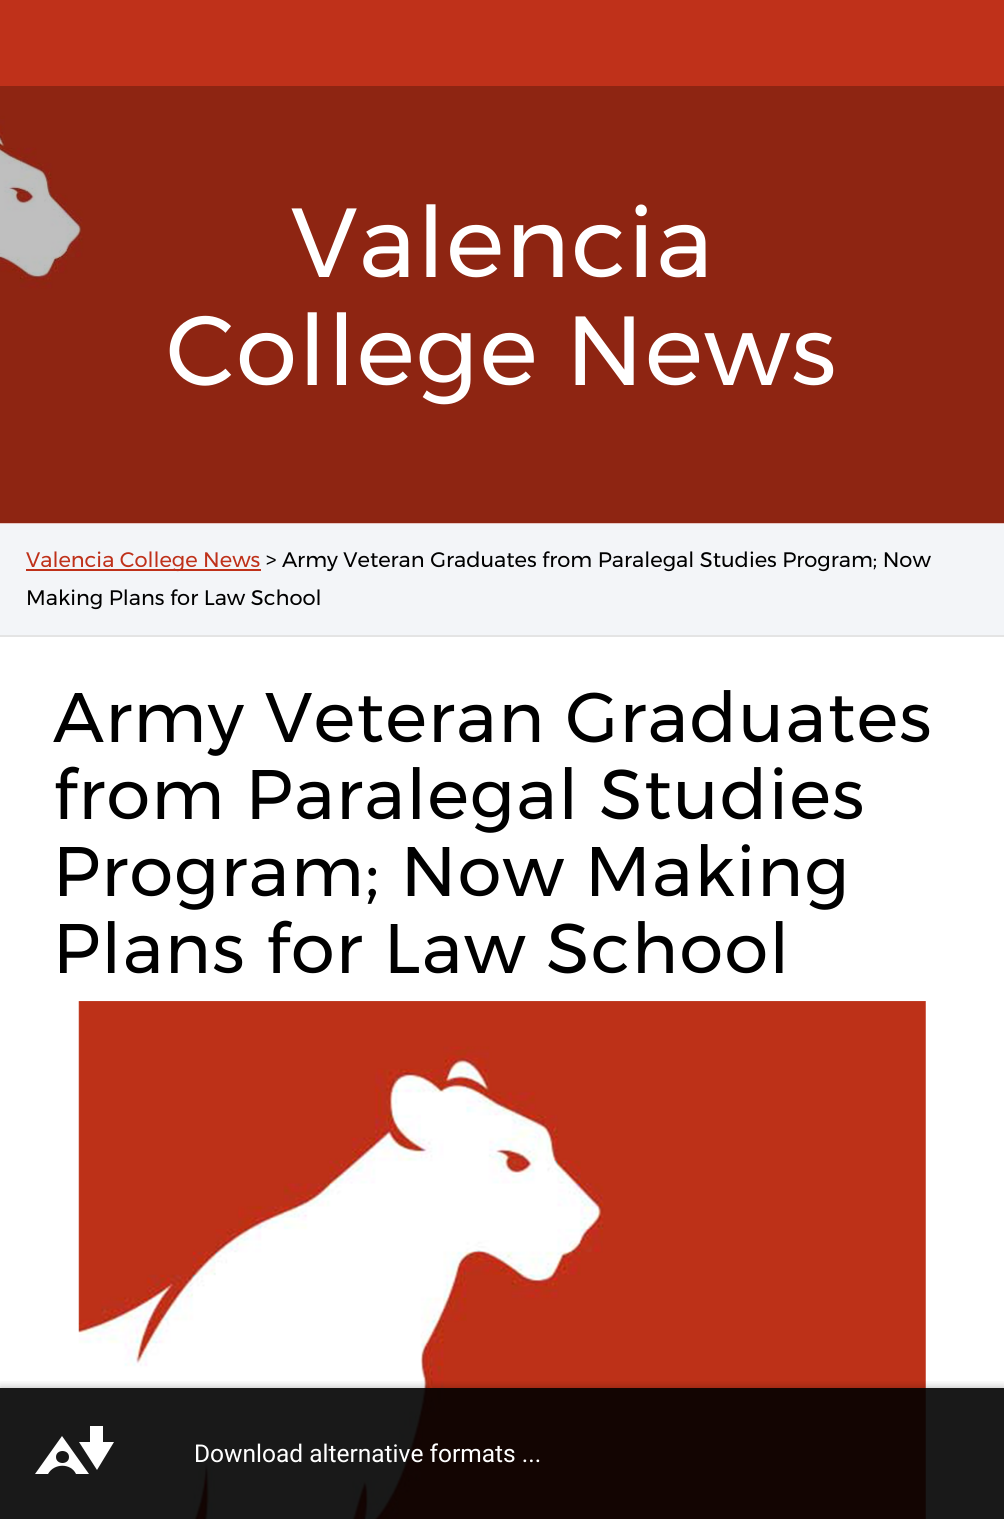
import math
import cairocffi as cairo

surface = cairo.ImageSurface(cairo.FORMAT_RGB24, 1004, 1519)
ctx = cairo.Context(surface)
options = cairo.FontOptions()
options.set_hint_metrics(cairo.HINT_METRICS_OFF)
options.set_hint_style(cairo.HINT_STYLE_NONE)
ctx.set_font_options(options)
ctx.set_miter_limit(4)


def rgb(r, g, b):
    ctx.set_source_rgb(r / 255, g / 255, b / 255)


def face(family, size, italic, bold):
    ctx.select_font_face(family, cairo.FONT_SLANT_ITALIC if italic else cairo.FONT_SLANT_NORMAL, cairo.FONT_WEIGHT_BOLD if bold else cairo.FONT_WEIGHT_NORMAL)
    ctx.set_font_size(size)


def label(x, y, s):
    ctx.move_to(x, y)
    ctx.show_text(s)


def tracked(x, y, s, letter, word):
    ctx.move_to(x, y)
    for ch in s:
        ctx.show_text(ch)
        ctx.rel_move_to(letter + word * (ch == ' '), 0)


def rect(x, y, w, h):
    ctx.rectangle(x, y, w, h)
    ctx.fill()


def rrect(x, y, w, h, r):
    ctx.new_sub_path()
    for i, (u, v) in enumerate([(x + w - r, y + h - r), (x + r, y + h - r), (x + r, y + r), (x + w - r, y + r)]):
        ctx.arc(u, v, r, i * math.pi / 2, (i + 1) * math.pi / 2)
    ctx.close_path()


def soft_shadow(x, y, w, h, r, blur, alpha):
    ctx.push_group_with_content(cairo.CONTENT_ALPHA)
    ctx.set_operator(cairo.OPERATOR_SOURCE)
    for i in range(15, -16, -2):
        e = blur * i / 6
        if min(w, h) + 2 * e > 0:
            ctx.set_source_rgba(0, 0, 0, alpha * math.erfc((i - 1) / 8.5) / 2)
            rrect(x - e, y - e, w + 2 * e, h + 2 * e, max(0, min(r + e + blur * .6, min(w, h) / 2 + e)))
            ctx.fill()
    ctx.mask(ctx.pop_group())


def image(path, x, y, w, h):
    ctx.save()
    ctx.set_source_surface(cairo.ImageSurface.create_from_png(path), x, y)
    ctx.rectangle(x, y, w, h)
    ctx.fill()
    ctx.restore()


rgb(255, 255, 255)
ctx.paint()
rgb(191, 49, 26)
rect(0, 0, 1004, 86)
rgb(243, 245, 248)
rect(0, 523, 1004, 112)
image('image0.png', 0, 86, 1004, 438)
face('Montserrat', 98, 0, 0)
rgb(255, 255, 255)
tracked(291, 277, 'Valencia', 1.4, 0)
tracked(166, 385, 'College News', 1.4, 0)
rgb(228, 228, 228)
rect(0, 635, 1004, 2)
rgb(191, 49, 26)
rect(26, 569, 235, 2)
face('Montserrat', 21, 0, 0)
label(26, 567, 'Valencia College News')
rgb(0, 0, 0)
label(266, 567, '> Army Veteran Graduates from Paralegal Studies Program; Now')
label(26, 605, 'Making Plans for Law School')
face('Montserrat', 70, 0, 0)
tracked(53, 742, 'Army Veteran Graduates', 1.4, 0)
tracked(53, 819, 'from Paralegal Studies', 1.4, 0)
tracked(53, 896, 'Program; Now Making', 1.4, 0)
tracked(53, 973, 'Plans for Law School', 1.4, 0)
image('image1.png', 78, 1001, 848, 518)
ctx.save()
ctx.rectangle(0, 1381, 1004, 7)
ctx.clip()
rgb(0, 0, 0)
soft_shadow(0, 1388, 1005, 131, 0, 4.5, 0.3)
ctx.restore()
ctx.set_source_rgba(0, 0, 0, 0.9)
rect(0, 1388, 1004, 131)
rgb(255, 255, 255)
ctx.set_fill_rule(cairo.FILL_RULE_EVEN_ODD)
ctx.new_path()
ctx.move_to(114, 1442)
ctx.line_to(97, 1470)
ctx.line_to(79, 1442)
ctx.line_to(90, 1442)
ctx.line_to(90, 1426)
ctx.line_to(103, 1426)
ctx.line_to(103, 1442)
ctx.close_path()
ctx.move_to(35, 1474)
ctx.line_to(62, 1436)
ctx.line_to(89, 1474)
ctx.line_to(76, 1474)
ctx.curve_to(71, 1463, 54, 1463, 48, 1474)
ctx.close_path()
ctx.move_to(56, 1457)
ctx.curve_to(56, 1465, 69, 1465, 69, 1457)
ctx.curve_to(69, 1449, 56, 1449, 56, 1457)
ctx.close_path()
ctx.fill()
face('Roboto', 24.5, 0, 0)
label(194, 1462, 'Download alternative formats ...')
surface.write_to_png('render.png')
